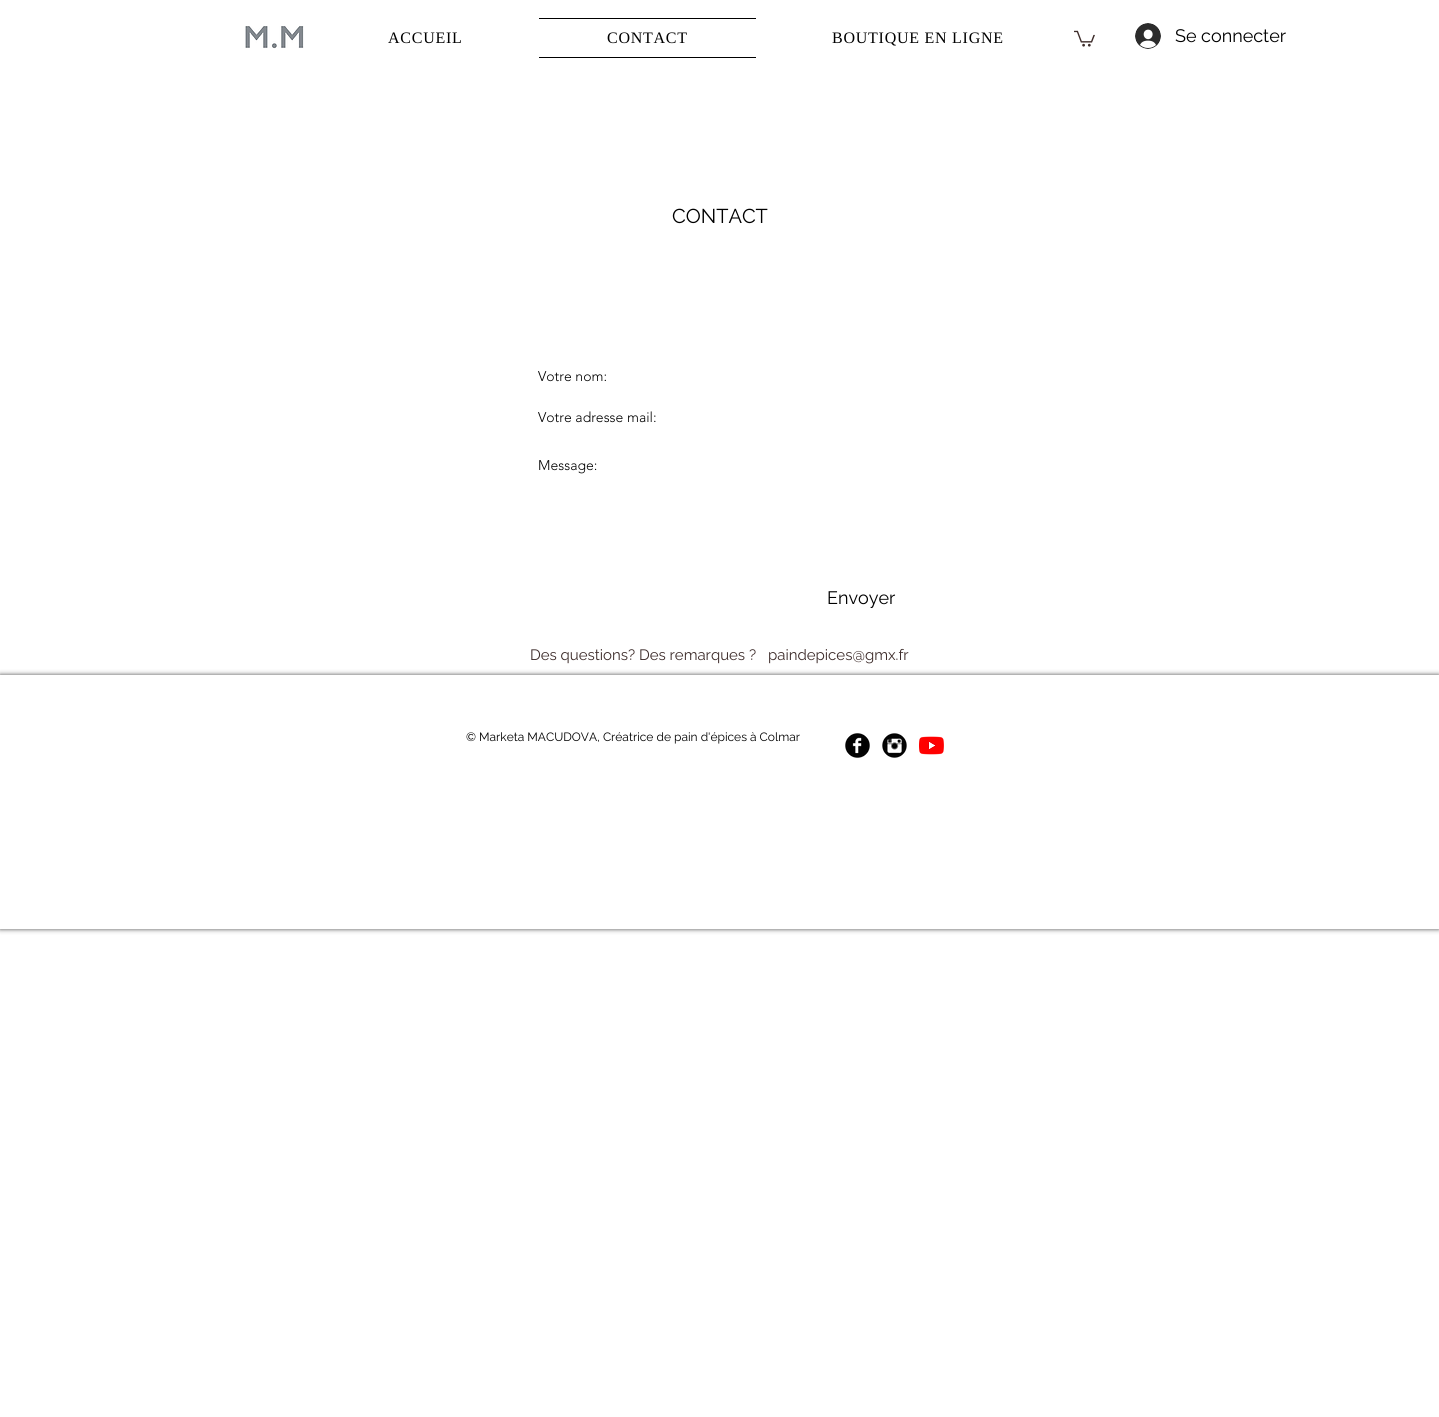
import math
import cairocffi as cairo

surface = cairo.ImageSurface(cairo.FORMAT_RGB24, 1439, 1417)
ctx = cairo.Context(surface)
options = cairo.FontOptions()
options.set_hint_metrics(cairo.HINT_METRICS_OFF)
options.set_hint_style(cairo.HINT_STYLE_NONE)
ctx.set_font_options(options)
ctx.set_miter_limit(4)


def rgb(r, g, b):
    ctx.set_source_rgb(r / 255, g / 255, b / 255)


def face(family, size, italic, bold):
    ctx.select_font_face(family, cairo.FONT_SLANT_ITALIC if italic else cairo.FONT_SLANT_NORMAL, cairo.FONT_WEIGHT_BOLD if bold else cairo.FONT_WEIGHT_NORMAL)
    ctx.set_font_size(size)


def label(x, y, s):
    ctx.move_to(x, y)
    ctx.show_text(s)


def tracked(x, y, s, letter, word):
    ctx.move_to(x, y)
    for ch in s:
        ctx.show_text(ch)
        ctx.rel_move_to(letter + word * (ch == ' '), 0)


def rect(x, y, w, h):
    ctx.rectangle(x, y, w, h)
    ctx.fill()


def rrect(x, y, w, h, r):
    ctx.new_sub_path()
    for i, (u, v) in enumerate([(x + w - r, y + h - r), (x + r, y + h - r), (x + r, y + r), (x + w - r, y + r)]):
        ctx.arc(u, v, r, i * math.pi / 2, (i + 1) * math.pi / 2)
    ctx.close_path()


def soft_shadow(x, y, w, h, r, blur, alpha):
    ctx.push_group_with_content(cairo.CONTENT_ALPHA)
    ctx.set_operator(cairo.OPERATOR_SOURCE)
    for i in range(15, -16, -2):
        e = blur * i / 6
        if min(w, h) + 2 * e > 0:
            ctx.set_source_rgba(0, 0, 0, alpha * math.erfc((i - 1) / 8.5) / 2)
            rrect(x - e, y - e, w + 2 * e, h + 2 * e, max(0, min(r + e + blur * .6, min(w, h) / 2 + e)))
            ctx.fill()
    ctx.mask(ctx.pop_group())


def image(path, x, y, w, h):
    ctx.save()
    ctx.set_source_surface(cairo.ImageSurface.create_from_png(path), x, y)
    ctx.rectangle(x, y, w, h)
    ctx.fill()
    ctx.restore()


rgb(255, 255, 255)
ctx.paint()
image('image0.png', 245, 26, 59, 23)
face('Liberation Serif', 16, 0, 0)
rgb(0, 0, 0)
tracked(388, 43, 'ACCUEIL', 0.75, 0)
rect(539, 18, 217, 1)
rect(539, 57, 217, 1)
tracked(607, 43, 'CONTACT', 0.75, 0)
tracked(832, 43, 'BOUTIQUE EN LIGNE', 0.75, 0)
image('image1.png', 1074, 30, 21, 17)
image('image2.png', 1135, 23, 26, 26)
face('Raleway', 18, 0, 0)
label(1175, 42, 'Se connecter')
face('Raleway', 20, 0, 0)
label(672, 223, 'CONTACT')
face('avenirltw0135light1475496 Light', 14, 0, 0)
label(538, 381, 'Votre nom:')
label(538, 422, 'Votre adresse mail:')
label(538, 470, 'Message:')
face('Raleway', 18, 0, 0)
label(827, 604, 'Envoyer')
face('Raleway', 15, 0, 0)
rgb(61, 44, 42)
label(530, 660, 'Des questions? Des remarques ?')
label(768, 660, 'paindepices@gmx.fr')
ctx.save()
ctx.set_fill_rule(cairo.FILL_RULE_EVEN_ODD)
ctx.new_path()
ctx.move_to(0, 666)
ctx.line_to(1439, 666)
ctx.line_to(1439, 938)
ctx.line_to(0, 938)
ctx.close_path()
ctx.move_to(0, 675)
ctx.line_to(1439, 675)
ctx.line_to(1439, 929)
ctx.line_to(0, 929)
ctx.close_path()
ctx.clip()
rgb(0, 0, 0)
soft_shadow(0, 675, 1439, 254, 0, 2.5, 0.7)
ctx.restore()
face('Raleway', 12, 0, 0)
rgb(0, 0, 0)
label(466, 741, '© Marketa MACUDOVA, Créatrice de pain d\'épices à Colmar')
image('image3.png', 845, 733, 25, 25)
image('image4.png', 882, 733, 25, 25)
image('image5.png', 919, 736, 25, 19)
surface.write_to_png('render.png')
